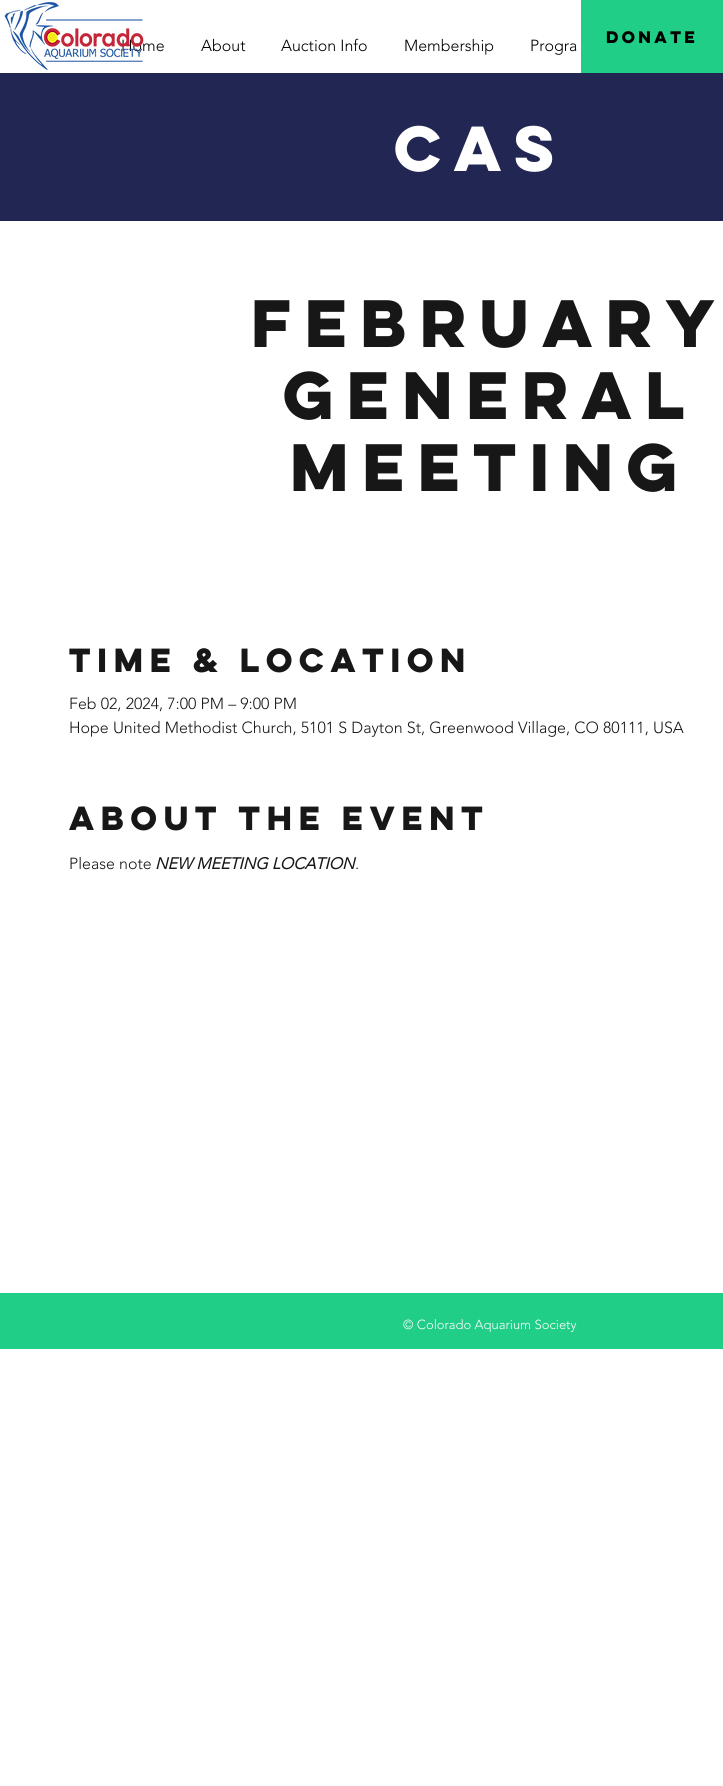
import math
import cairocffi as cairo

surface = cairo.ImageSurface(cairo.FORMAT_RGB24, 723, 1786)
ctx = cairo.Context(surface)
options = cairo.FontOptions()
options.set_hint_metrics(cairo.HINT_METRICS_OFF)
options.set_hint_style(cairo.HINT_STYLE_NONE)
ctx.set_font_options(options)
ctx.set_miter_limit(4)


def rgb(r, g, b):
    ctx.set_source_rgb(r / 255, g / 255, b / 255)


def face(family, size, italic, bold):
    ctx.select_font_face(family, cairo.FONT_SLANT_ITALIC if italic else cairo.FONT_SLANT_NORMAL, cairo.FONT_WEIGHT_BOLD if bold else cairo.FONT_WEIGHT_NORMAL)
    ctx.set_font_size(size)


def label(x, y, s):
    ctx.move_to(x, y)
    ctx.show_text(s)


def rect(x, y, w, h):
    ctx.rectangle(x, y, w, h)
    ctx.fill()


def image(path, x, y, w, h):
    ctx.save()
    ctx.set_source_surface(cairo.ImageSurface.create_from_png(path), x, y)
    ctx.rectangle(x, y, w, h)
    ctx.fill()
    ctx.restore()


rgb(255, 255, 255)
ctx.paint()
face('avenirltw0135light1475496 Light', 16, 0, 0)
rgb(0, 0, 0)
label(121, 51, 'Home')
image('image0.png', 4, 2, 140, 68)
label(201, 51, 'About')
label(281, 51, 'Auction Info')
label(404, 51, 'Membership')
label(530, 51, 'Progra')
rgb(32, 206, 136)
rect(581, 0, 142, 73)
face('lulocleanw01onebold', 15, 0, 1)
rgb(0, 0, 0)
label(606, 43, 'Donate')
rgb(34, 38, 82)
rect(0, 73, 723, 148)
face('lulocleanw01onebold', 57, 0, 1)
rgb(255, 255, 255)
label(394, 171, 'CAS')
face('lulocleanw01onebold', 60, 0, 1)
rgb(23, 23, 23)
label(251, 347, 'February')
label(283, 419, 'General')
label(290, 491, 'Meeting')
face('lulocleanw01onebold', 30, 0, 1)
label(69, 672, 'Time & Location')
face('avenirltw0135light1475496 Light', 16, 0, 0)
label(69, 709, 'Feb 02, 2024, 7:00 PM – 9:00 PM')
label(69, 733, 'Hope United Methodist Church, 5101 S Dayton St, Greenwood Village, CO 80111, USA')
face('lulocleanw01onebold', 30, 0, 1)
label(69, 830, 'About the Event')
face('avenirltw0135light1475496 Light', 16, 0, 0)
label(69, 869, 'Please note')
face('avenirltw0135light1475496', 16, 1, 1)
label(155, 869, 'NEW MEETING LOCATION')
face('avenirltw0135light1475496 Light', 16, 0, 0)
label(355, 869, '.')
rgb(32, 206, 136)
rect(0, 1293, 723, 56)
face('avenirltw0135light1475496 Light', 13, 0, 0)
rgb(255, 255, 255)
label(403, 1329, '© Colorado Aquarium Society')
surface.write_to_png('render.png')
